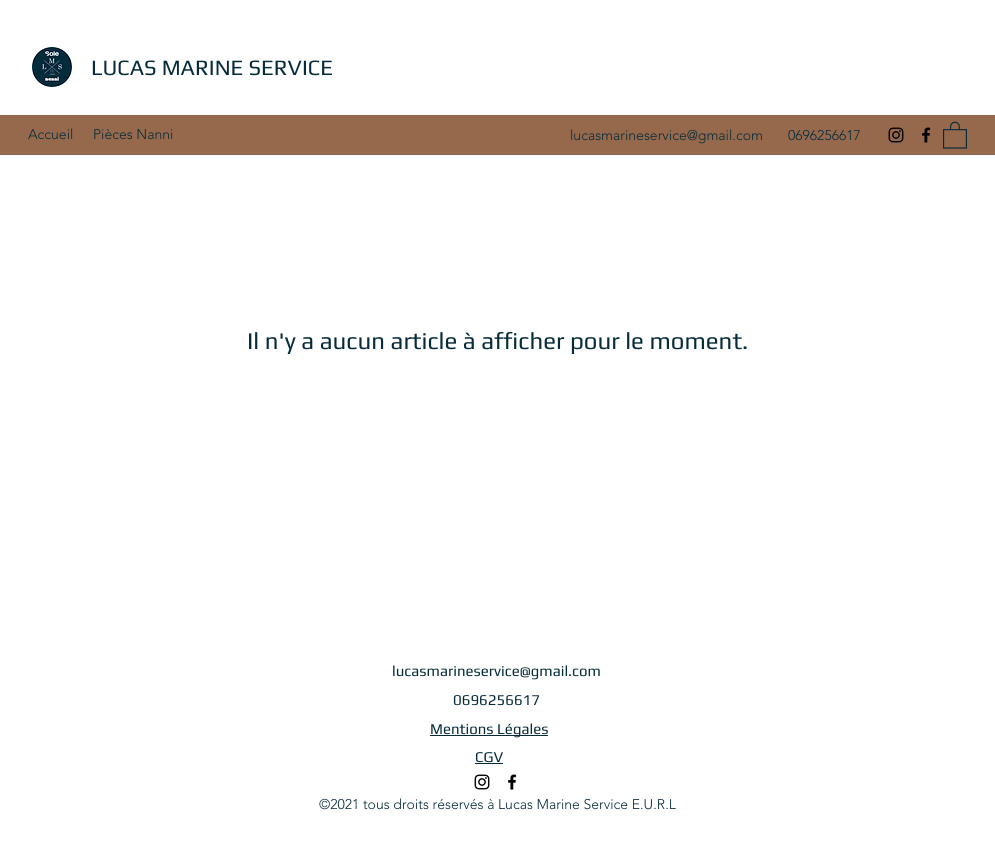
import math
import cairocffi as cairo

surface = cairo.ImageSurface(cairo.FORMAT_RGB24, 995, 866)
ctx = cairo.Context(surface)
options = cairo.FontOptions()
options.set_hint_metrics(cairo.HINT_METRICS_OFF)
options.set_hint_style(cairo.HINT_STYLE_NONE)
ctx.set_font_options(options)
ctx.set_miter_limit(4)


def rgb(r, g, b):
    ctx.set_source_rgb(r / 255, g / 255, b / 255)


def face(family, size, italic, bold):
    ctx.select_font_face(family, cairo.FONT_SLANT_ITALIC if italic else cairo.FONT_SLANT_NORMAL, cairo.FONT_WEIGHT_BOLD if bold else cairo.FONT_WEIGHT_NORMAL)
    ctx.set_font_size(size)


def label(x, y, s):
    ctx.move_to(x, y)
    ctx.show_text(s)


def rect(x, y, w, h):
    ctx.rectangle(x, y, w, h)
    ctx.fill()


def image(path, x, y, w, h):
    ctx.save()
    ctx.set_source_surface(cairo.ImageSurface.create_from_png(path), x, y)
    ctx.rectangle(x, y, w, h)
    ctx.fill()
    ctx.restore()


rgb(255, 255, 255)
ctx.paint()
image('image0.png', 32, 47, 40, 40)
face('Play', 22, 0, 0)
rgb(5, 42, 58)
label(91, 75, 'LUCAS MARINE SERVICE')
rgb(150, 105, 76)
rect(0, 115, 995, 40)
face('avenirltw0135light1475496 Light', 14, 0, 0)
rgb(5, 42, 58)
label(28, 139, 'Accueil')
label(93, 139, 'Pièces Nanni')
label(570, 140, 'lucasmarineservice@gmail.com')
label(788, 140, '0696256617')
image('image1.png', 888, 127, 16, 16)
image('image2.png', 922, 127, 9, 16)
image('image3.png', 943, 121, 24, 28)
face('Play', 24, 0, 0)
label(247, 349, 'Il n\'y a aucun article à afficher pour le moment.')
face('Play', 15, 0, 0)
label(392, 676, 'lucasmarineservice@gmail.com')
label(453, 705, '0696256617')
rect(430, 735, 118, 1)
label(430, 734, 'Mentions Légales')
label(475, 762, 'CGV')
rect(475, 763, 28, 1)
image('image4.png', 474, 774, 16, 16)
image('image5.png', 508, 774, 9, 16)
face('avenirltw0135light1475496 Light', 14, 0, 0)
label(319, 809, '©2021 tous droits réservés à Lucas Marine Service E.U.R.L')
surface.write_to_png('render.png')
